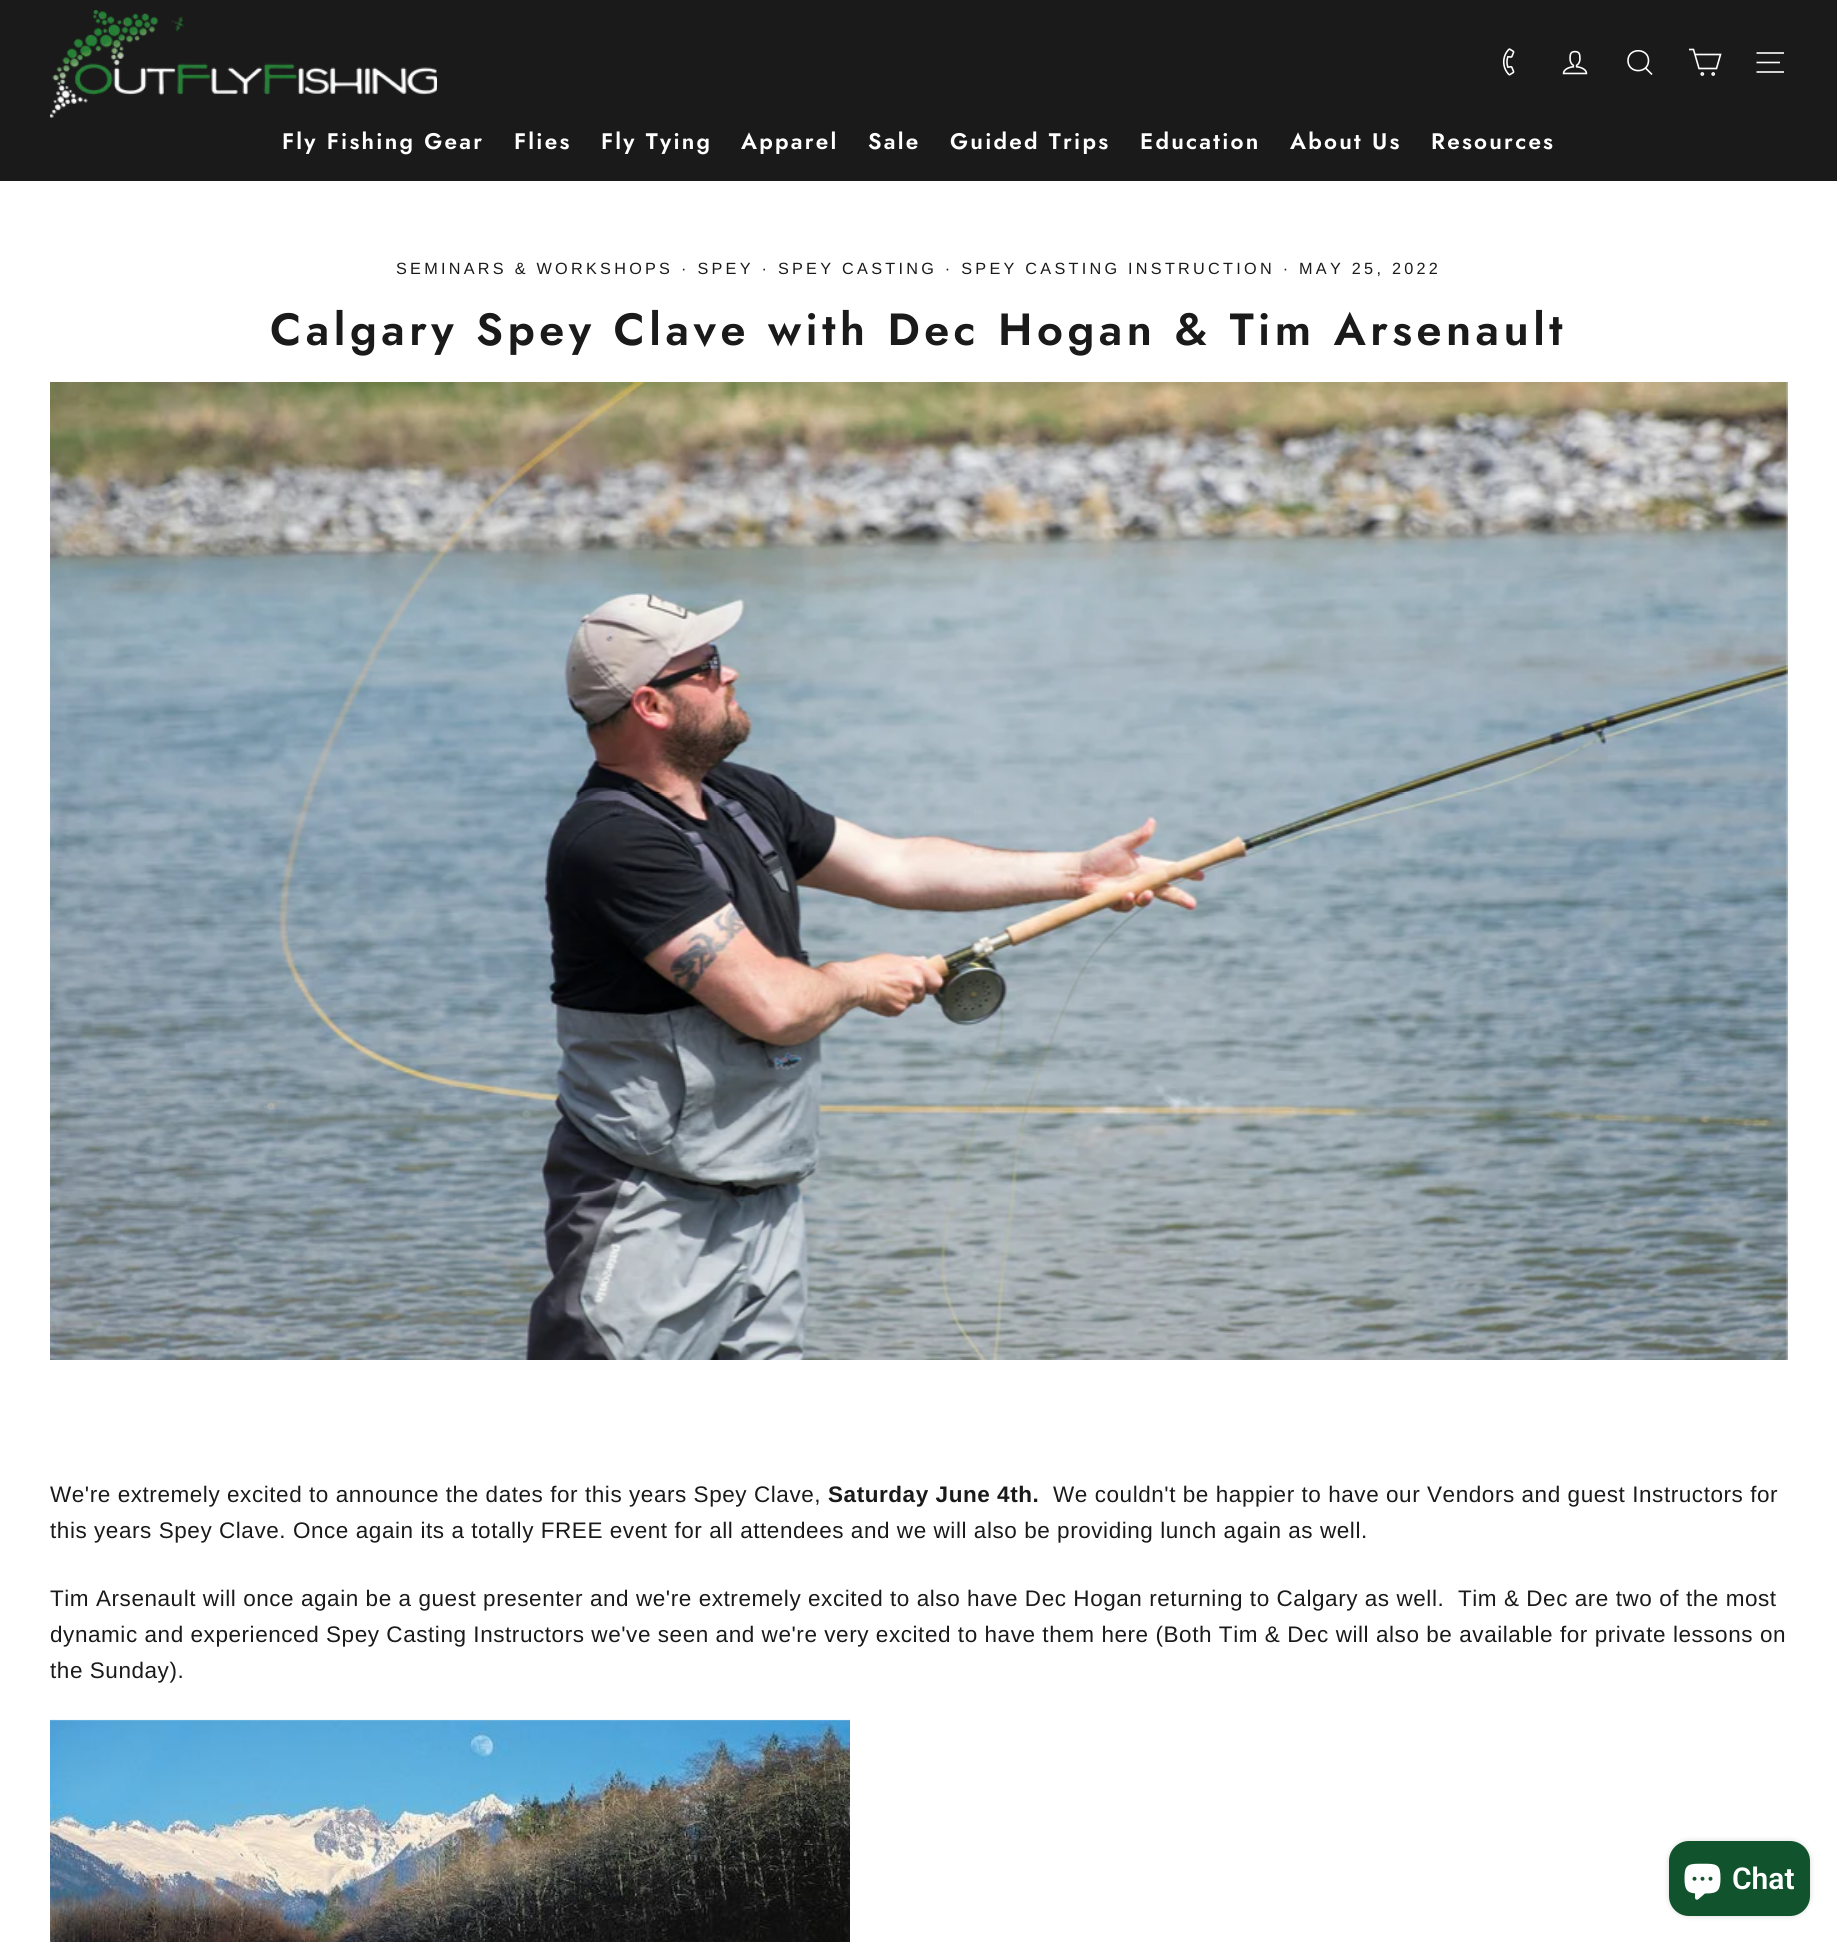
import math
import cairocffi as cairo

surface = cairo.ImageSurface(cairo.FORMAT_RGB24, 1837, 1942)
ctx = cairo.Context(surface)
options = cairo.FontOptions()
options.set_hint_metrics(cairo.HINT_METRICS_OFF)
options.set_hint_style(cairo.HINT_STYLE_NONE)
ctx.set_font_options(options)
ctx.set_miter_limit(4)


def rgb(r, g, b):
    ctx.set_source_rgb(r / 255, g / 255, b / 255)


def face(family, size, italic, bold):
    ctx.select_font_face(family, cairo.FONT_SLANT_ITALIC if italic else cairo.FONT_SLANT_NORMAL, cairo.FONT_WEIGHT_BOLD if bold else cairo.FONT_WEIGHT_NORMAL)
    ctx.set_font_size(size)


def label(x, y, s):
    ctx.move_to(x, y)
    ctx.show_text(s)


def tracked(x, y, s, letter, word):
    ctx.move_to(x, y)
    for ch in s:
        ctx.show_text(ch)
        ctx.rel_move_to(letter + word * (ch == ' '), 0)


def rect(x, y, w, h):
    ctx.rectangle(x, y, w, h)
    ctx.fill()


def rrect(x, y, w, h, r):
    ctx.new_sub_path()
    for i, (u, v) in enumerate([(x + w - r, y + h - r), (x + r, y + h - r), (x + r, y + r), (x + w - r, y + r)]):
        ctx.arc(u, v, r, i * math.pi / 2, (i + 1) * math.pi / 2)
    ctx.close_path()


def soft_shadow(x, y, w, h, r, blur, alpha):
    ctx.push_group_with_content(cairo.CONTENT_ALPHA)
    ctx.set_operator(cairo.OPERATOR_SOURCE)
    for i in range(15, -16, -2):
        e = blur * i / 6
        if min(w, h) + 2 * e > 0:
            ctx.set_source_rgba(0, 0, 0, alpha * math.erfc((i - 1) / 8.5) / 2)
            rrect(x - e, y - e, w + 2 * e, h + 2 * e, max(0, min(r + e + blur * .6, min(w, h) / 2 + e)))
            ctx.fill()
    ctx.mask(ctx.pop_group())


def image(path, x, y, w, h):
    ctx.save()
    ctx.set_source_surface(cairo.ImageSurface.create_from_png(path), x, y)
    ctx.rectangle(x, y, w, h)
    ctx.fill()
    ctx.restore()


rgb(255, 255, 255)
ctx.paint()
rgb(26, 26, 26)
rect(0, 0, 1837, 181)
image('image0.png', 50, 10, 387, 108)
image('image1.png', 1502, 48, 13, 28)
image('image2.png', 1562, 50, 26, 25)
ctx.new_path()
ctx.move_to(1648.5, 60.5)
ctx.curve_to(1648.5, 74, 1628, 74, 1628, 60.5)
ctx.curve_to(1628, 47.5, 1648.5, 47.5, 1648.5, 60.5)
ctx.close_path()
ctx.move_to(1652, 74.5)
ctx.line_to(1645.5, 68)
rgb(255, 255, 255)
ctx.set_line_width(1.6)
ctx.stroke()
ctx.new_path()
ctx.move_to(1695, 54.5)
ctx.line_to(1720.5, 54.5)
ctx.line_to(1716.5, 68.5)
ctx.line_to(1699, 68.5)
ctx.line_to(1693.5, 49.5)
ctx.line_to(1689, 49.5)
ctx.stroke()
ctx.arc(1702.3, 74, 1.1, 0, 2 * math.pi)
ctx.stroke()
ctx.arc(1713.2, 74, 1.1, 0, 2 * math.pi)
ctx.stroke()
ctx.new_path()
ctx.move_to(1756.5, 53)
ctx.line_to(1784, 53)
ctx.move_to(1756.5, 62.5)
ctx.line_to(1780, 62.5)
ctx.move_to(1756.5, 72)
ctx.line_to(1784, 72)
ctx.stroke()
face('Jost SemiBold', 22.5, 0, 0)
tracked(282, 149, 'Fly Fishing Gear', 2.25, 0)
tracked(514, 149, 'Flies', 2.25, 0)
tracked(601, 149, 'Fly Tying', 2.25, 0)
tracked(741, 149, 'Apparel', 2.25, 0)
tracked(868, 149, 'Sale', 2.25, 0)
tracked(950, 149, 'Guided Trips', 2.25, 0)
tracked(1140, 149, 'Education', 2.25, 0)
tracked(1290, 149, 'About Us', 2.25, 0)
tracked(1431, 149, 'Resources', 2.25, 0)
face('Liberation Sans', 16.25, 0, 0)
rgb(26, 26, 26)
tracked(396, 274, 'SEMINARS & WORKSHOPS · SPEY · SPEY CASTING · SPEY CASTING INSTRUCTION · MAY 25, 2022', 3.25, 0)
face('Jost SemiBold', 45, 0, 0)
tracked(270, 345, 'Calgary Spey Clave with Dec Hogan & Tim Arsenault', 4.5, 0)
image('image3.png', 50, 382, 1738, 978)
face('Liberation Sans', 22.5, 0, 0)
tracked(50, 1502, 'We\'re extremely excited to announce the dates for this years Spey Clave,', 0.56, 0)
face('Liberation Sans', 22.5, 0, 1)
tracked(828, 1502, 'Saturday June 4th.', 0.56, 0)
face('Liberation Sans', 22.5, 0, 0)
tracked(1053, 1502, 'We couldn\'t be happier to have our Vendors and guest Instructors for', 0.56, 0)
tracked(50, 1538, 'this years Spey Clave. Once again its a totally FREE event for all attendees and we will also be providing lunch again as well.', 0.56, 0)
tracked(50, 1606, 'Tim Arsenault will once again be a guest presenter and we\'re extremely excited to also have Dec Hogan returning to Calgary as well.  Tim & Dec are two of the most', 0.56, 0)
tracked(50, 1642, 'dynamic and experienced Spey Casting Instructors we\'ve seen and we\'re very excited to have them here (Both Tim & Dec will also be available for private lessons on', 0.56, 0)
tracked(50, 1678, 'the Sunday).', 0.56, 0)
image('image4.png', 50, 1719, 800, 223)
rgb(0, 0, 0)
soft_shadow(1669, 1841, 141, 75, 20, 3, 0.15)
rgb(17, 83, 44)
rrect(1669, 1841, 141, 75, 20)
ctx.fill()
image('image5.png', 1684, 1863, 37, 37)
face('Roboto SemiBold', 30, 0, 0)
rgb(255, 255, 255)
label(1732, 1889, 'Chat')
surface.write_to_png('render.png')
